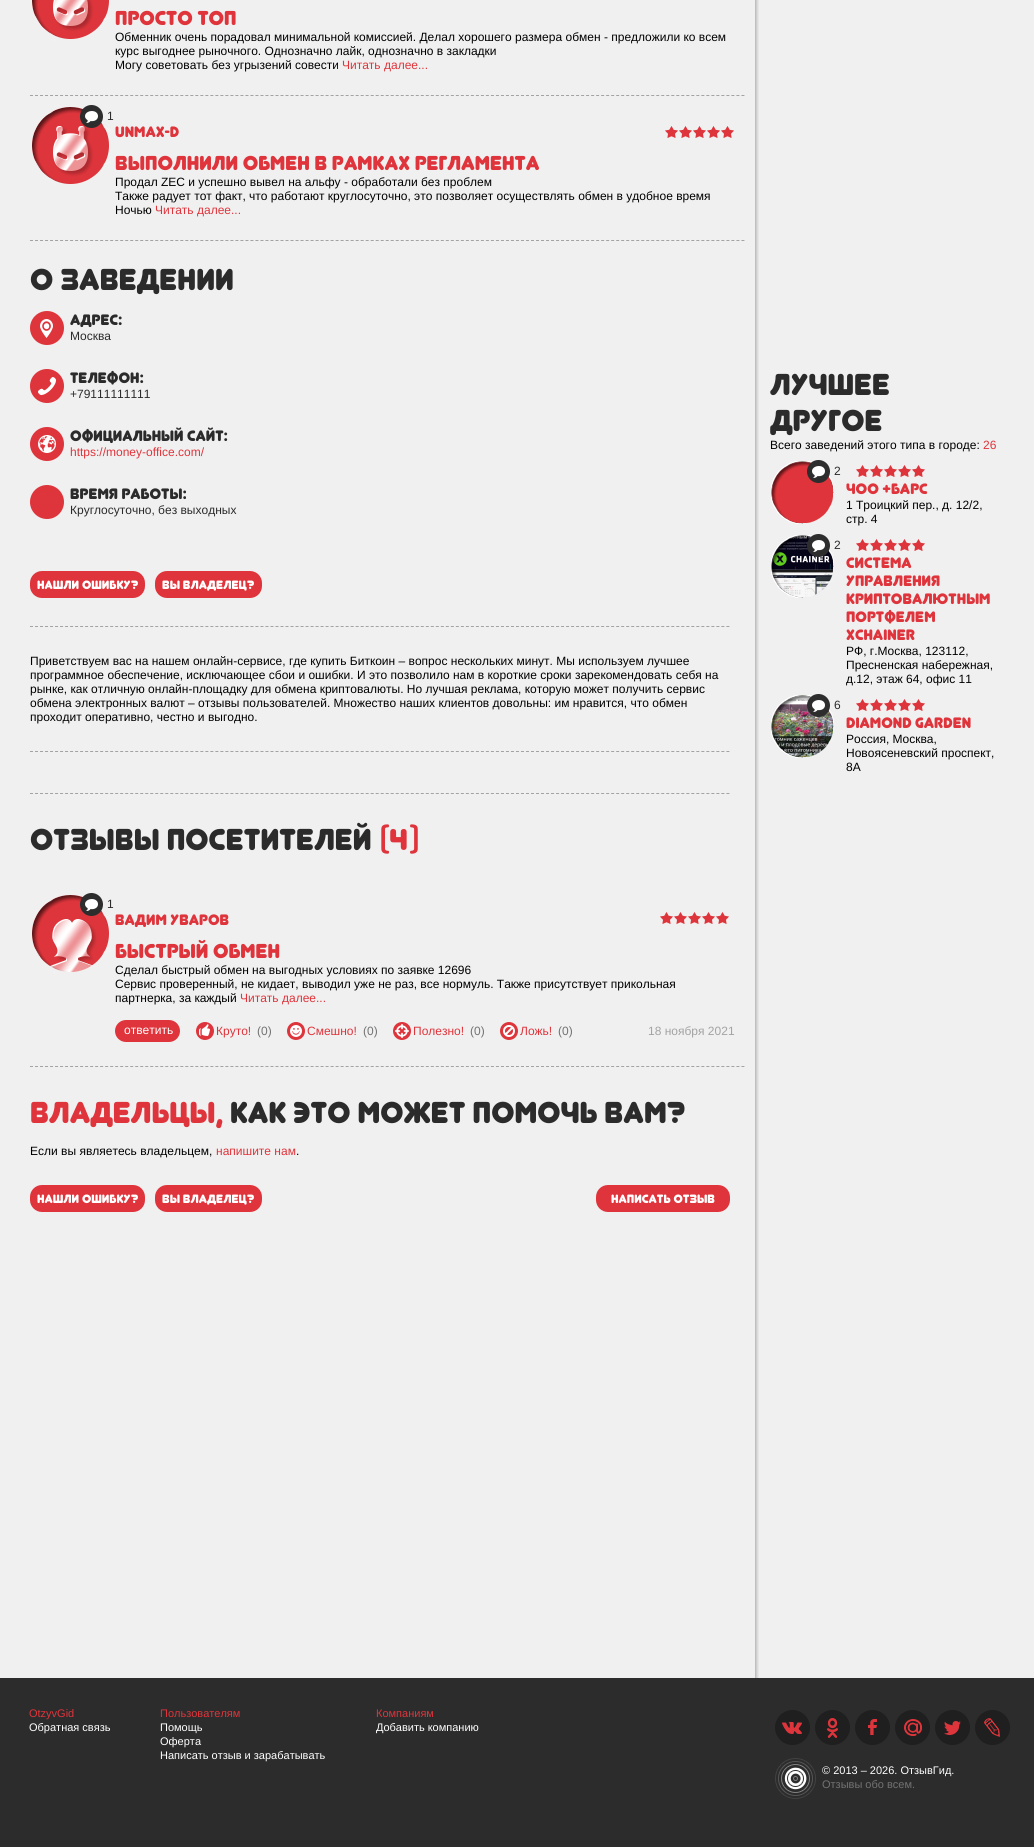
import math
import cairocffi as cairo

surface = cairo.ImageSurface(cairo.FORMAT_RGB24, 1034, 1847)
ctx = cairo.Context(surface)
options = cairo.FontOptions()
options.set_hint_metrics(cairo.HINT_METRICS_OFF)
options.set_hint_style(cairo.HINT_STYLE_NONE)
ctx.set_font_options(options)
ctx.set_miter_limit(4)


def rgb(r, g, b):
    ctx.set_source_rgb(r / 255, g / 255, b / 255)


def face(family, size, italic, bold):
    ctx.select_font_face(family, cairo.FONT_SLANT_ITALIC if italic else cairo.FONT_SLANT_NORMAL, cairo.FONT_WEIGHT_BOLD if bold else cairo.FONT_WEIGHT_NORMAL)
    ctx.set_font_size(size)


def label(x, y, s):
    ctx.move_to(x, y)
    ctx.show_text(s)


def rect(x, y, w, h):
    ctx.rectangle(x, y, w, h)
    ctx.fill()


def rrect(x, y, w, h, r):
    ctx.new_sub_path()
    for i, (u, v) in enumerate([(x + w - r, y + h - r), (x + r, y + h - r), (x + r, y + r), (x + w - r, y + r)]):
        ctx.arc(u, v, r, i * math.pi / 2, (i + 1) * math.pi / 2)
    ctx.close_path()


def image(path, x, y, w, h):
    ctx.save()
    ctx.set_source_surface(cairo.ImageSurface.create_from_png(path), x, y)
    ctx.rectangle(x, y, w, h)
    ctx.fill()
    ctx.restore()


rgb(240, 240, 240)
ctx.paint()
ctx.new_path()
ctx.move_to(30, 95.5)
ctx.line_to(745, 95.5)
rgb(163, 163, 163)
ctx.set_line_width(1)
ctx.set_dash([3, 2.01])
ctx.stroke()
image('image1.png', 32, 0, 77, 39)
image('image0.png', 30, 0, 81, 41)
face('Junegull', 20, 0, 0)
rgb(223, 52, 59)
label(115, 25, 'Просто топ')
face('Liberation Sans', 12, 0, 0)
rgb(0, 0, 0)
label(115, 41, 'Обменник очень порадовал минимальной комиссией. Делал хорошего размера обмен - предложили ко всем')
label(115, 55, 'курс выгоднее рыночного. Однозначно лайк, однозначно в закладки')
label(115, 69, 'Могу советовать без угрызений совести')
rgb(223, 52, 59)
label(342, 69, 'Читать далее...')
ctx.new_path()
ctx.move_to(30, 240.5)
ctx.line_to(745, 240.5)
rgb(163, 163, 163)
ctx.stroke()
image('image3.png', 32, 107, 77, 77)
image('image2.png', 30, 105, 81, 81)
image('image4.png', 80, 105, 23, 23)
rgb(43, 43, 43)
label(107, 120, '1')
face('Junegull', 15, 0, 0)
rgb(223, 52, 59)
label(115, 137, 'unmax-d')
image('image5.png', 665, 126, 69, 12)
image('image6.png', 665, 126, 69, 12)
face('Junegull', 20, 0, 0)
label(115, 170, 'Выполнили обмен в рамках регламента')
face('Liberation Sans', 12, 0, 0)
rgb(0, 0, 0)
label(115, 186, 'Продал ZEC и успешно вывел на альфу - обработали без проблем')
label(115, 200, 'Также радует тот факт, что работают круглосуточно, это позволяет осуществлять обмен в удобное время')
label(115, 214, 'Ночью')
rgb(223, 52, 59)
label(155, 214, 'Читать далее...')
ctx.new_path()
ctx.move_to(30, 626.5)
ctx.line_to(730, 626.5)
rgb(163, 163, 163)
ctx.stroke()
face('Junegull', 30, 0, 0)
rgb(43, 43, 43)
label(30, 290, 'о заведении')
image('image7.png', 30, 311, 34, 34)
face('Junegull', 15, 0, 0)
label(70, 325, 'адрес:')
face('Liberation Sans', 12, 0, 0)
label(70, 340, 'Москва')
image('image8.png', 30, 369, 34, 34)
face('Junegull', 15, 0, 0)
label(70, 383, 'телефон:')
face('Liberation Sans', 12, 0, 0)
label(70, 398, '+79111111111')
image('image9.png', 30, 427, 34, 34)
face('Junegull', 15, 0, 0)
label(70, 441, 'официальный сайт:')
face('Liberation Sans', 12, 0, 0)
rgb(223, 52, 59)
label(70, 456, 'https://money-office.com/')
image('image10.png', 30, 485, 34, 34)
face('Junegull', 15, 0, 0)
rgb(43, 43, 43)
label(70, 499, 'время работы:')
face('Liberation Sans', 12, 0, 0)
label(70, 514, 'Круглосуточно, без выходных')
rgb(223, 52, 59)
rrect(30, 571, 115, 27, 12)
ctx.fill()
face('Junegull', 12, 0, 0)
rgb(255, 255, 255)
label(37, 589, 'нашли ошибку?')
rgb(223, 52, 59)
rrect(155, 571, 107, 27, 12)
ctx.fill()
rgb(255, 255, 255)
label(162, 589, 'вы владелец?')
ctx.new_path()
ctx.move_to(30, 751.5)
ctx.line_to(730, 751.5)
rgb(163, 163, 163)
ctx.stroke()
face('Liberation Sans', 12, 0, 0)
rgb(0, 0, 0)
label(30, 665, 'Приветствуем вас на нашем онлайн-сервисе, где купить Биткоин – вопрос нескольких минут. Мы используем лучшее')
label(30, 679, 'программное обеспечение, исключающее сбои и ошибки. И это позволило нам в короткие сроки зарекомендовать себя на')
label(30, 693, 'рынке, как отличную онлайн-площадку для обмена криптовалюты. Но лучшая реклама, которую может получить сервис')
label(30, 707, 'обмена электронных валют – отзывы пользователей. Множество наших клиентов довольны: им нравится, что обмен')
label(30, 721, 'проходит оперативно, честно и выгодно.')
ctx.new_path()
ctx.move_to(30, 793.5)
ctx.line_to(730, 793.5)
rgb(163, 163, 163)
ctx.stroke()
face('Junegull', 30, 0, 0)
rgb(43, 43, 43)
label(30, 850, 'отзывы посетителей')
rgb(223, 52, 59)
label(379, 850, '(4)')
ctx.new_path()
ctx.move_to(30, 1066.5)
ctx.line_to(745, 1066.5)
rgb(163, 163, 163)
ctx.stroke()
image('image12.png', 32, 895, 77, 77)
image('image11.png', 30, 893, 81, 81)
image('image13.png', 80, 893, 23, 23)
face('Liberation Sans', 12, 0, 0)
rgb(43, 43, 43)
label(107, 908, '1')
face('Junegull', 15, 0, 0)
rgb(223, 52, 59)
label(115, 925, 'Вадим Уваров')
image('image5.png', 660, 912, 69, 12)
image('image6.png', 660, 912, 69, 12)
face('Junegull', 20, 0, 0)
label(115, 958, 'Быстрый обмен')
face('Liberation Sans', 12, 0, 0)
rgb(0, 0, 0)
label(115, 974, 'Сделал быстрый обмен на выгодных условиях по заявке 12696')
label(115, 988, 'Сервис проверенный, не кидает, выводил уже не раз, все нормуль. Также присутствует прикольная')
label(115, 1002, 'партнерка, за каждый')
rgb(223, 52, 59)
label(240, 1002, 'Читать далее...')
rrect(115, 1020, 65, 22, 11)
ctx.fill()
rgb(255, 255, 255)
label(124, 1034, 'ответить')
image('image14.png', 196, 1022, 18, 18)
rgb(223, 52, 59)
label(216, 1035, 'Круто!')
rgb(114, 114, 114)
label(257, 1035, '(0)')
image('image15.png', 287, 1022, 18, 18)
rgb(223, 52, 59)
label(307, 1035, 'Смешно!')
rgb(114, 114, 114)
label(363, 1035, '(0)')
image('image16.png', 393, 1022, 18, 18)
rgb(223, 52, 59)
label(413, 1035, 'Полезно!')
rgb(114, 114, 114)
label(470, 1035, '(0)')
image('image17.png', 500, 1022, 18, 18)
rgb(223, 52, 59)
label(520, 1035, 'Ложь!')
rgb(114, 114, 114)
label(558, 1035, '(0)')
rgb(163, 163, 163)
label(648, 1035, '18 ноября 2021')
face('Junegull', 30, 0, 0)
rgb(223, 52, 59)
label(30, 1123, 'Владельцы,')
rgb(43, 43, 43)
label(230, 1123, 'как это может помочь вам?')
face('Liberation Sans', 12, 0, 0)
rgb(0, 0, 0)
label(30, 1155, 'Если вы являетесь владельцем,')
rgb(223, 52, 59)
label(216, 1155, 'напишите нам')
rgb(0, 0, 0)
label(296, 1155, '.')
rgb(223, 52, 59)
rrect(30, 1185, 115, 27, 12)
ctx.fill()
face('Junegull', 12, 0, 0)
rgb(255, 255, 255)
label(37, 1203, 'нашли ошибку?')
rgb(223, 52, 59)
rrect(155, 1185, 107, 27, 12)
ctx.fill()
rgb(255, 255, 255)
label(162, 1203, 'вы владелец?')
rgb(223, 52, 59)
rrect(596, 1185, 134, 27, 12)
ctx.fill()
rgb(255, 255, 255)
label(611, 1203, 'написать отзыв')
image('image18.png', 755, 0, 4, 1678)
face('Junegull', 30, 0, 0)
rgb(43, 43, 43)
label(770, 395, 'лучшее')
label(770, 431, 'Другое')
face('Liberation Sans', 12, 0, 0)
rgb(0, 0, 0)
label(770, 449, 'Всего заведений этого типа в городе:')
rgb(223, 52, 59)
label(983, 449, '26')
rect(771, 461, 62, 62)
image('image19.png', 770, 460, 64, 64)
image('image20.png', 807, 460, 23, 23)
rgb(43, 43, 43)
label(834, 475, '2')
image('image5.png', 856, 465, 69, 12)
image('image6.png', 856, 465, 69, 12)
face('Junegull', 15, 0, 0)
rgb(223, 52, 59)
label(846, 494, 'ЧОО +Барс')
face('Liberation Sans', 12, 0, 0)
rgb(0, 0, 0)
label(846, 509, '1 Троицкий пер., д. 12/2,')
label(846, 523, 'стр. 4')
image('image22.png', 771, 535, 62, 62)
image('image21.png', 770, 534, 64, 64)
image('image23.png', 807, 534, 23, 23)
rgb(43, 43, 43)
label(834, 549, '2')
image('image5.png', 856, 539, 69, 12)
image('image6.png', 856, 539, 69, 12)
face('Junegull', 15, 0, 0)
rgb(223, 52, 59)
label(846, 568, 'Cистема')
label(846, 586, 'управления')
label(846, 604, 'криптовалютным')
label(846, 622, 'портфелем')
label(846, 640, 'XChainer')
face('Liberation Sans', 12, 0, 0)
rgb(0, 0, 0)
label(846, 655, 'РФ, г.Москва, 123112,')
label(846, 669, 'Пресненская набережная,')
label(846, 683, 'д.12, этаж 64, офис 11')
image('image25.png', 771, 695, 62, 62)
image('image24.png', 770, 694, 64, 64)
image('image26.png', 807, 694, 23, 23)
rgb(43, 43, 43)
label(834, 709, '6')
image('image5.png', 856, 699, 69, 12)
image('image6.png', 856, 699, 69, 12)
face('Junegull', 15, 0, 0)
rgb(223, 52, 59)
label(846, 728, 'Diamond Garden')
face('Liberation Sans', 12, 0, 0)
rgb(0, 0, 0)
label(846, 743, 'Россия, Москва,')
label(846, 757, 'Новоясеневский проспект,')
label(846, 771, '8А')
rgb(44, 44, 44)
rect(0, 1678, 1034, 169)
face('Liberation Sans', 11, 0, 0)
rgb(223, 52, 59)
label(29, 1717, 'OtzyvGid')
rgb(255, 255, 255)
label(29, 1731, 'Обратная связь')
rgb(223, 52, 59)
label(160, 1717, 'Пользователям')
rgb(255, 255, 255)
label(160, 1731, 'Помощь')
label(160, 1745, 'Оферта')
label(160, 1759, 'Написать отзыв и зарабатывать')
rgb(223, 52, 59)
label(376, 1717, 'Компаниям')
rgb(255, 255, 255)
label(376, 1731, 'Добавить компанию')
image('image27.png', 775, 1710, 35, 35)
image('image28.png', 815, 1710, 35, 35)
image('image29.png', 855, 1710, 35, 35)
image('image30.png', 895, 1710, 35, 35)
image('image31.png', 935, 1710, 35, 35)
image('image32.png', 975, 1710, 35, 35)
image('image33.png', 775, 1758, 41, 41)
label(822, 1774, '© 2013 – 2026. ОтзывГид.')
rgb(114, 114, 114)
label(822, 1788, 'Отзывы обо всем.')
surface.write_to_png('render.png')
